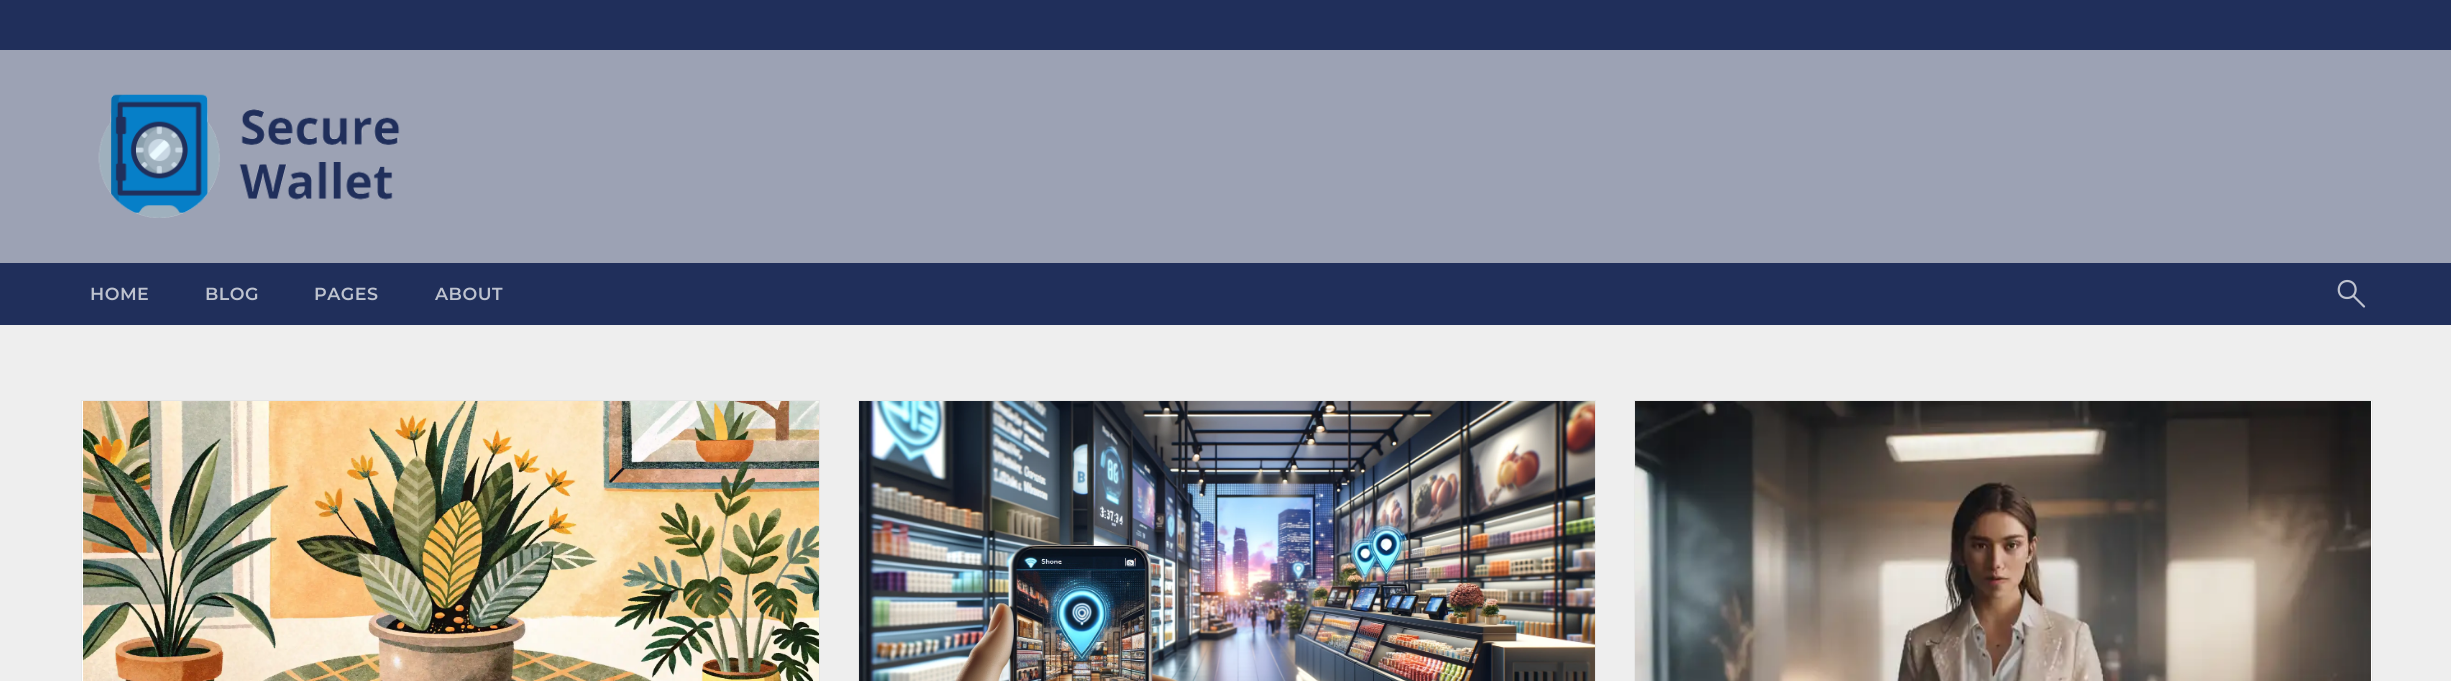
import math
import cairocffi as cairo

surface = cairo.ImageSurface(cairo.FORMAT_RGB24, 2451, 681)
ctx = cairo.Context(surface)
options = cairo.FontOptions()
options.set_hint_metrics(cairo.HINT_METRICS_OFF)
options.set_hint_style(cairo.HINT_STYLE_NONE)
ctx.set_font_options(options)
ctx.set_miter_limit(4)


def rgb(r, g, b):
    ctx.set_source_rgb(r / 255, g / 255, b / 255)


def face(family, size, italic, bold):
    ctx.select_font_face(family, cairo.FONT_SLANT_ITALIC if italic else cairo.FONT_SLANT_NORMAL, cairo.FONT_WEIGHT_BOLD if bold else cairo.FONT_WEIGHT_NORMAL)
    ctx.set_font_size(size)


def tracked(x, y, s, letter, word):
    ctx.move_to(x, y)
    for ch in s:
        ctx.show_text(ch)
        ctx.rel_move_to(letter + word * (ch == ' '), 0)


def rect(x, y, w, h):
    ctx.rectangle(x, y, w, h)
    ctx.fill()


def image(path, x, y, w, h):
    ctx.save()
    ctx.set_source_surface(cairo.ImageSurface.create_from_png(path), x, y)
    ctx.rectangle(x, y, w, h)
    ctx.fill()
    ctx.restore()


rgb(238, 238, 238)
ctx.paint()
rgb(32, 47, 91)
rect(0, 0, 2451, 50)
rgb(156, 162, 180)
rect(0, 50, 2451, 213)
image('image0.png', 98, 94, 302, 124)
rgb(32, 47, 91)
rect(0, 263, 2451, 62)
face('Montserrat SemiBold', 17.5, 0, 0)
rgb(190, 195, 207)
tracked(90, 300, 'HOME', 0.5, 0)
tracked(205, 300, 'BLOG', 0.5, 0)
tracked(314, 300, 'PAGES', 0.5, 0)
tracked(435, 300, 'ABOUT', 0.5, 0)
ctx.new_path()
ctx.move_to(2347, 298)
ctx.curve_to(2358.5, 298, 2358.5, 281, 2347, 281)
ctx.curve_to(2336, 281.5, 2336, 298, 2347, 298)
ctx.close_path()
ctx.move_to(2353.5, 296)
ctx.line_to(2364, 306.5)
ctx.set_line_width(2.2)
ctx.set_line_cap(cairo.LINE_CAP_ROUND)
ctx.set_line_join(cairo.LINE_JOIN_ROUND)
ctx.stroke()
rgb(255, 255, 255)
rect(82, 401, 1, 280)
ctx.rectangle(81.5, 400.5, 738, 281)
rgb(230, 230, 230)
ctx.set_line_width(1)
ctx.set_line_cap(cairo.LINE_CAP_BUTT)
ctx.set_line_join(cairo.LINE_JOIN_MITER)
ctx.stroke()
image('image1.png', 83, 401, 736, 280)
ctx.rectangle(858.5, 400.5, 737, 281)
ctx.stroke()
image('image2.png', 859, 401, 736, 280)
rgb(255, 255, 255)
rect(2371, 401, 1, 280)
ctx.rectangle(1634.5, 400.5, 738, 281)
rgb(230, 230, 230)
ctx.stroke()
image('image3.png', 1635, 401, 736, 280)
surface.write_to_png('render.png')
